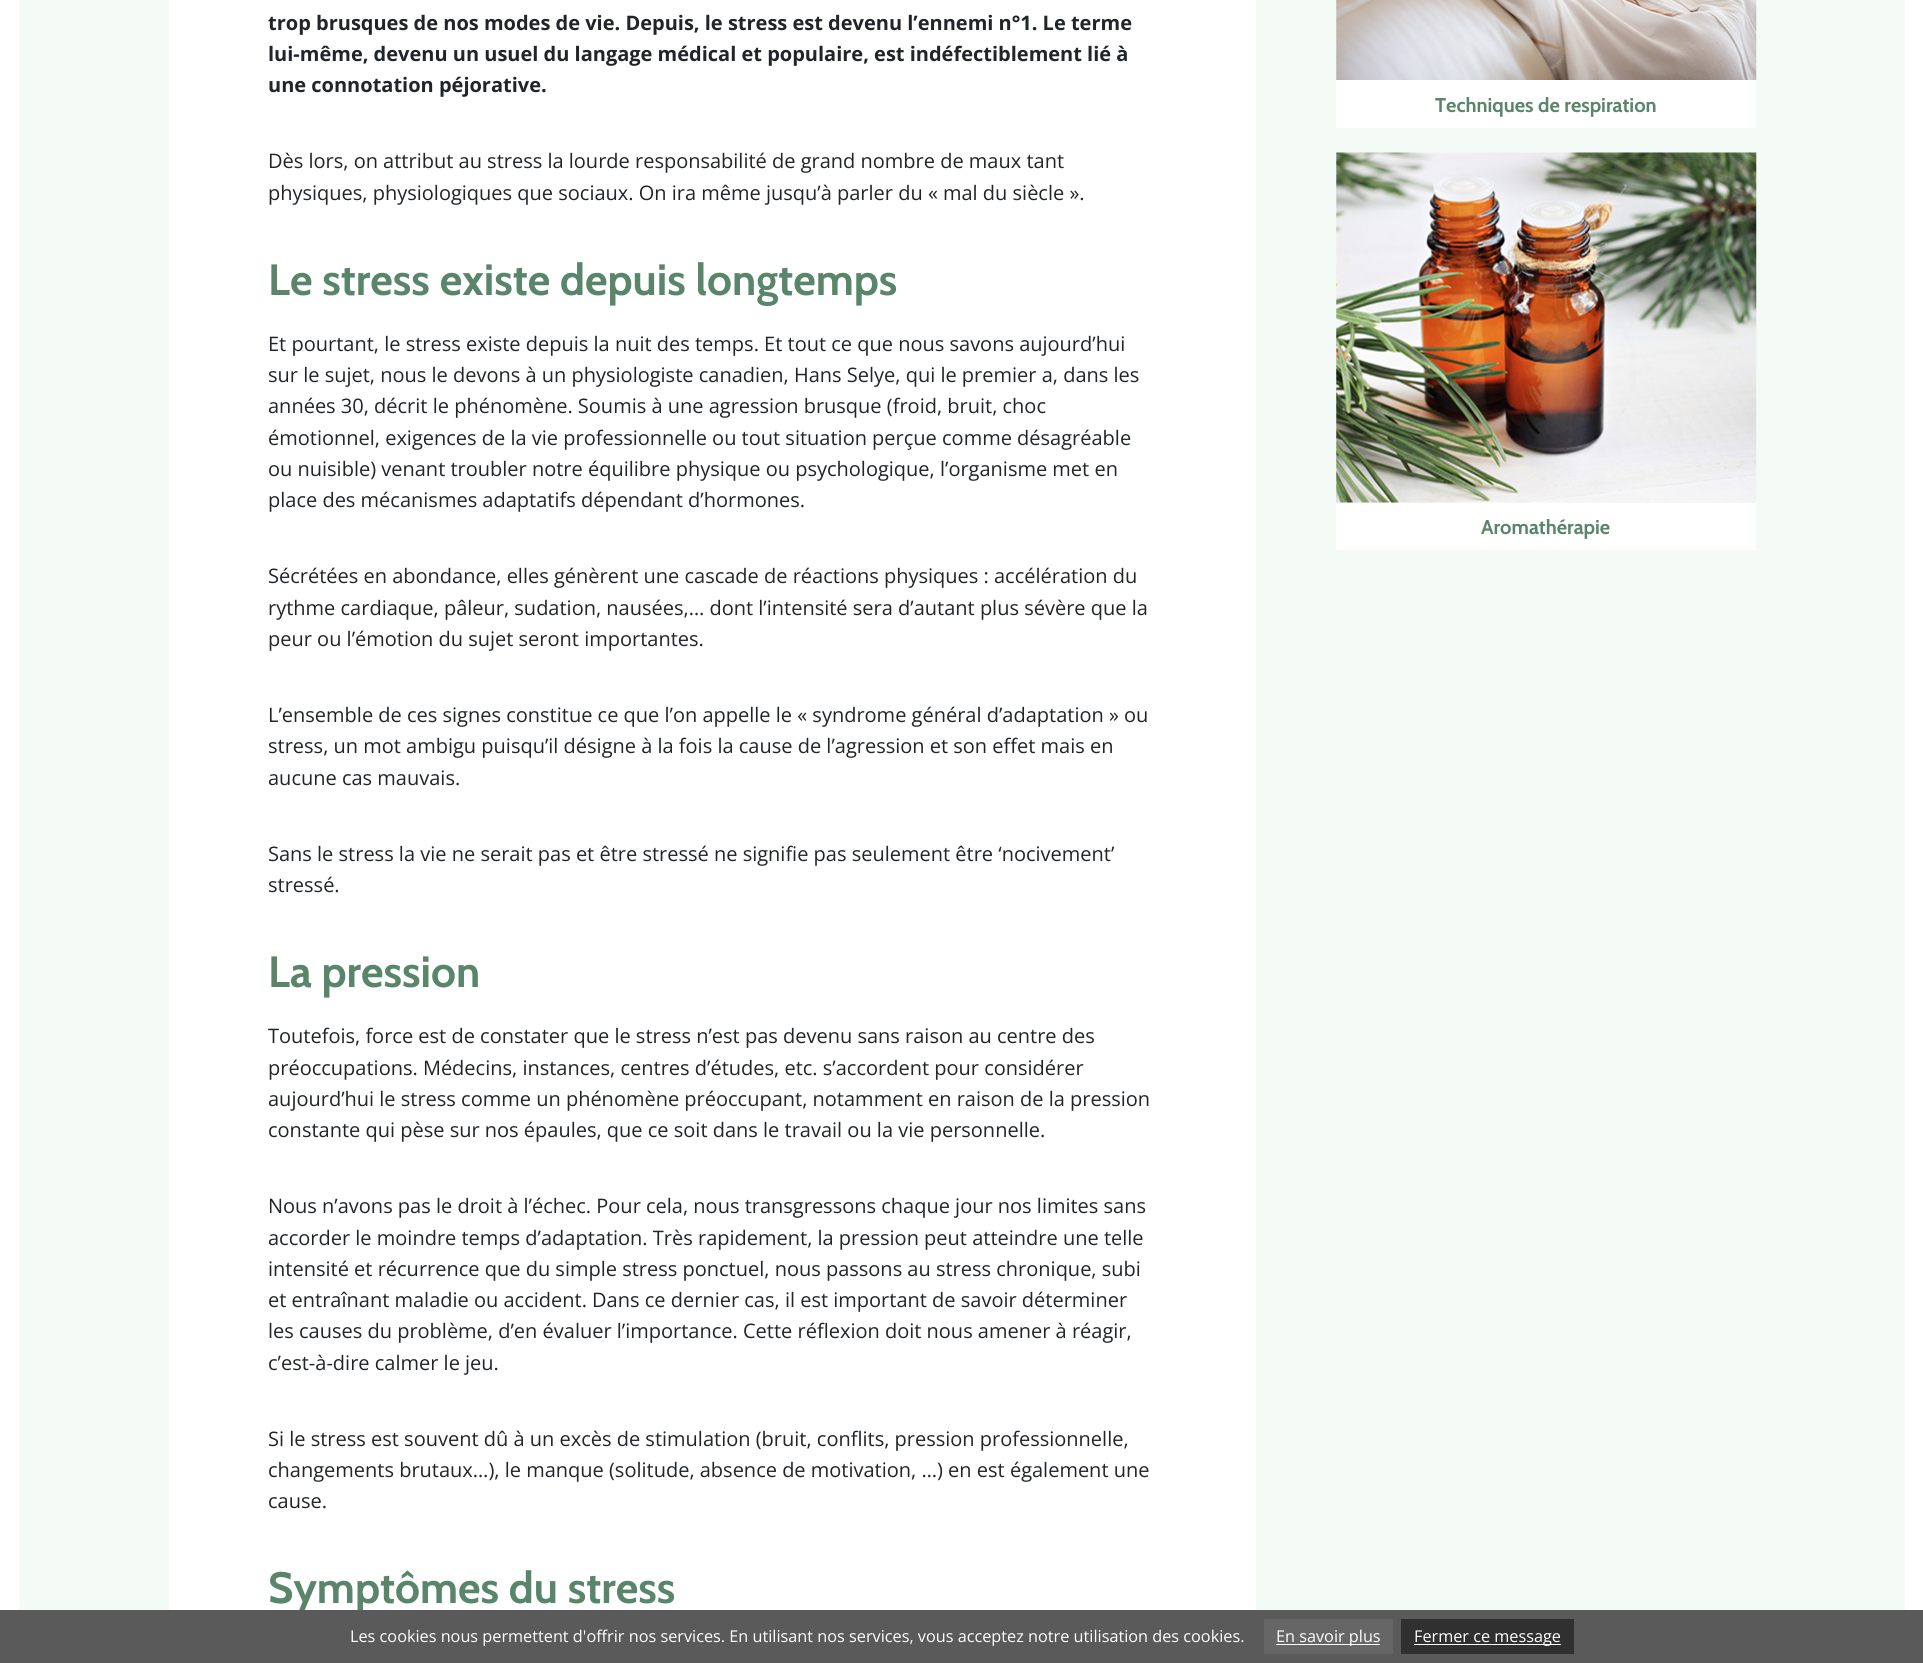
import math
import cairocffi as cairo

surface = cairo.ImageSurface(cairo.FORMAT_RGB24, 1923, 1663)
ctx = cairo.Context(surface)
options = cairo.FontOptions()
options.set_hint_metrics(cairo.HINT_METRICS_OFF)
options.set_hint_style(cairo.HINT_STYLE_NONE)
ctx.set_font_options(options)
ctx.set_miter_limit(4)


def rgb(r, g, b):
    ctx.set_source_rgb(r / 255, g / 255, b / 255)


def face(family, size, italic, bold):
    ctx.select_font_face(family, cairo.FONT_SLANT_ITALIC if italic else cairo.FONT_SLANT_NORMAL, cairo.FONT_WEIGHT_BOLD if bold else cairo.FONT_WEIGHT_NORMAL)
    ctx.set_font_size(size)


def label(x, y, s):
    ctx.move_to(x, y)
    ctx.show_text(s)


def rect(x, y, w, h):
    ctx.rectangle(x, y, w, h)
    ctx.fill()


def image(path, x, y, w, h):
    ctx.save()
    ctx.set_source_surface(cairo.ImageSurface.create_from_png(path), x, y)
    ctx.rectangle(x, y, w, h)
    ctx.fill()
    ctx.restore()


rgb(255, 255, 255)
ctx.paint()
rgb(244, 250, 246)
rect(19, 0, 1886, 1610)
rgb(255, 255, 255)
rect(169, 0, 1087, 1610)
face('Open Sans', 20, 0, 1)
rgb(33, 37, 41)
label(268, 30, 'trop brusques de nos modes de vie. Depuis, le stress est devenu l’ennemi n°1. Le terme')
label(268, 61, 'lui-même, devenu un usuel du langage médical et populaire, est indéfectiblement lié à')
label(268, 92, 'une connotation péjorative.')
face('Open Sans', 20, 0, 0)
label(268, 168, 'Dès lors, on attribut au stress la lourde responsabilité de grand nombre de maux tant')
label(268, 200, 'physiques, physiologiques que sociaux. On ira même jusqu’à parler du « mal du siècle ».')
face('Cabin', 43.75, 0, 1)
rgb(89, 133, 106)
label(268, 295, 'Le stress existe depuis longtemps')
face('Open Sans', 20, 0, 0)
rgb(33, 37, 41)
label(268, 351, 'Et pourtant, le stress existe depuis la nuit des temps. Et tout ce que nous savons aujourd’hui')
label(268, 382, 'sur le sujet, nous le devons à un physiologiste canadien, Hans Selye, qui le premier a, dans les')
label(268, 413, 'années 30, décrit le phénomène. Soumis à une agression brusque (froid, bruit, choc')
label(268, 445, 'émotionnel, exigences de la vie professionnelle ou tout situation perçue comme désagréable')
label(268, 476, 'ou nuisible) venant troubler notre équilibre physique ou psychologique, l’organisme met en')
label(268, 507, 'place des mécanismes adaptatifs dépendant d’hormones.')
label(268, 583, 'Sécrétées en abondance, elles génèrent une cascade de réactions physiques : accélération du')
label(268, 615, 'rythme cardiaque, pâleur, sudation, nausées,… dont l’intensité sera d’autant plus sévère que la')
label(268, 646, 'peur ou l’émotion du sujet seront importantes.')
label(268, 722, 'L’ensemble de ces signes constitue ce que l’on appelle le « syndrome général d’adaptation » ou')
label(268, 753, 'stress, un mot ambigu puisqu’il désigne à la fois la cause de l’agression et son effet mais en')
label(268, 785, 'aucune cas mauvais.')
label(268, 861, 'Sans le stress la vie ne serait pas et être stressé ne signifie pas seulement être ‘nocivement’')
label(268, 892, 'stressé.')
face('Cabin', 43.75, 0, 1)
rgb(89, 133, 106)
label(268, 987, 'La pression')
face('Open Sans', 20, 0, 0)
rgb(33, 37, 41)
label(268, 1043, 'Toutefois, force est de constater que le stress n’est pas devenu sans raison au centre des')
label(268, 1075, 'préoccupations. Médecins, instances, centres d’études, etc. s’accordent pour considérer')
label(268, 1106, 'aujourd’hui le stress comme un phénomène préoccupant, notamment en raison de la pression')
label(268, 1137, 'constante qui pèse sur nos épaules, que ce soit dans le travail ou la vie personnelle.')
label(268, 1213, 'Nous n’avons pas le droit à l’échec. Pour cela, nous transgressons chaque jour nos limites sans')
label(268, 1245, 'accorder le moindre temps d’adaptation. Très rapidement, la pression peut atteindre une telle')
label(268, 1276, 'intensité et récurrence que du simple stress ponctuel, nous passons au stress chronique, subi')
label(268, 1307, 'et entraînant maladie ou accident. Dans ce dernier cas, il est important de savoir déterminer')
label(268, 1338, 'les causes du problème, d’en évaluer l’importance. Cette réflexion doit nous amener à réagir,')
label(268, 1370, 'c’est-à-dire calmer le jeu.')
label(268, 1446, 'Si le stress est souvent dû à un excès de stimulation (bruit, conflits, pression professionnelle,')
label(268, 1477, 'changements brutaux…), le manque (solitude, absence de motivation, …) en est également une')
label(268, 1508, 'cause.')
face('Cabin', 43.75, 0, 1)
rgb(89, 133, 106)
label(268, 1603, 'Symptômes du stress')
image('image0.png', 1336, 0, 421, 80)
rgb(255, 255, 255)
rect(1336, 80, 420, 48)
face('Cabin', 20, 0, 1)
rgb(89, 133, 106)
label(1435, 112, 'Techniques de respiration')
image('image1.png', 1336, 152, 421, 351)
rgb(255, 255, 255)
rect(1336, 503, 420, 47)
rgb(89, 133, 106)
label(1481, 534, 'Aromathérapie')
rgb(90, 90, 90)
rect(0, 1610, 1923, 53)
face('Open Sans', 16.25, 0, 0)
rgb(255, 255, 255)
label(350, 1642, 'Les cookies nous permettent d\'offrir nos services. En utilisant nos services, vous acceptez notre utilisation des cookies.')
rgb(102, 102, 102)
rect(1264, 1619, 129, 35)
rgb(255, 255, 255)
rect(1276, 1644, 104, 1)
label(1276, 1642, 'En savoir plus')
rgb(48, 48, 48)
rect(1401, 1619, 173, 35)
rgb(255, 255, 255)
rect(1414, 1644, 147, 1)
label(1414, 1642, 'Fermer ce message')
surface.write_to_png('render.png')
